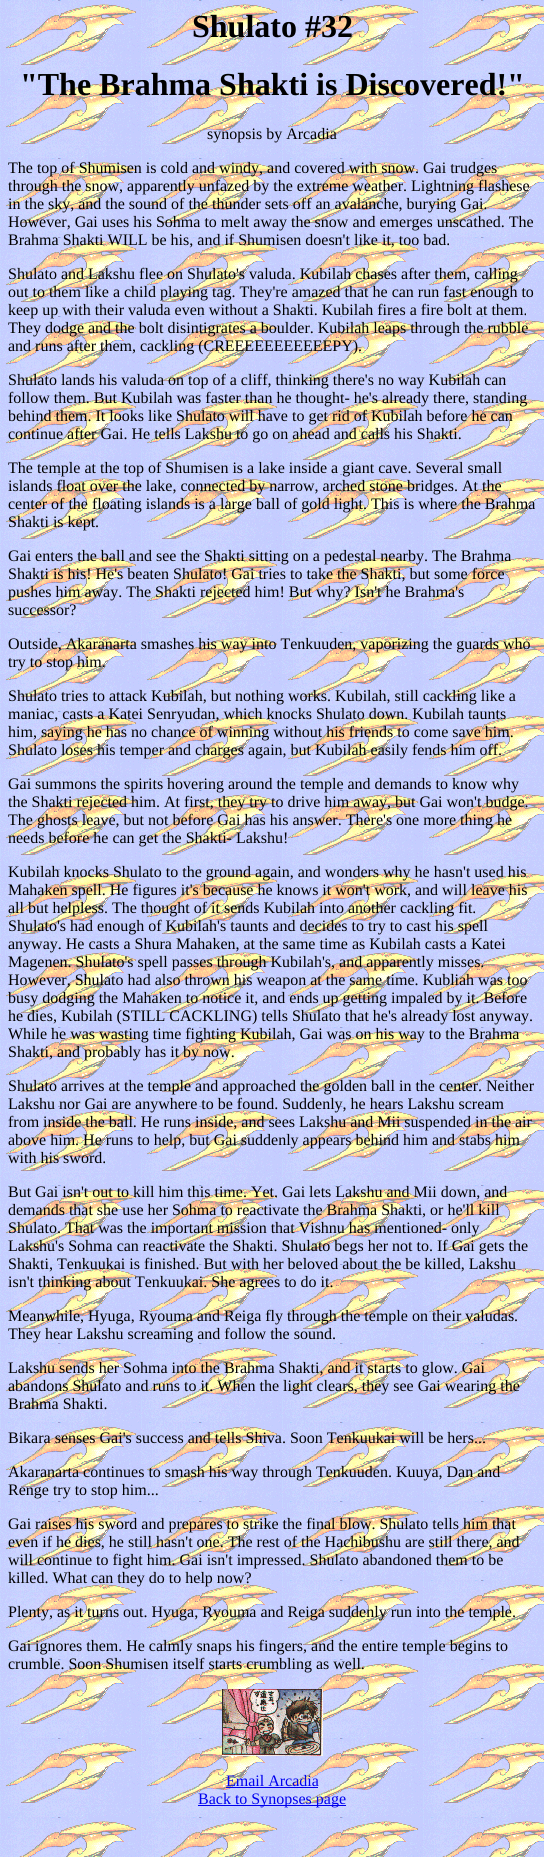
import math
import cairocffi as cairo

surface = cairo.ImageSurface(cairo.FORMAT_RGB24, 544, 1857)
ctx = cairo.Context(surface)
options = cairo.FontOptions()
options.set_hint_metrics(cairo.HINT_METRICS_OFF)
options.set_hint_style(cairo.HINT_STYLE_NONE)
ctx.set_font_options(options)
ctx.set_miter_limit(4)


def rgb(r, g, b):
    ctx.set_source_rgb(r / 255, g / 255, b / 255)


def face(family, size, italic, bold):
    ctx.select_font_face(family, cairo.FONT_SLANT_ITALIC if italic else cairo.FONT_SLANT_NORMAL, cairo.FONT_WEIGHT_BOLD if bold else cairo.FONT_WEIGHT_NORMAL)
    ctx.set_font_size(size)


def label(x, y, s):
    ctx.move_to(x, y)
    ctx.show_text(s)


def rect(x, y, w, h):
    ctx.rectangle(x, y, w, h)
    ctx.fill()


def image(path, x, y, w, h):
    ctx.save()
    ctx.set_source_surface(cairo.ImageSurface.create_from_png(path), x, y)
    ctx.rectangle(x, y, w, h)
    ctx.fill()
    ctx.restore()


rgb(255, 255, 255)
ctx.paint()
image('image0.png', 0, 0, 544, 1857)
face('Liberation Serif', 32, 0, 1)
rgb(0, 0, 0)
label(192, 37, 'Shulato #32')
label(20, 95, '"The Brahma Shakti is Discovered!"')
face('Liberation Serif', 16, 0, 0)
label(207, 139, 'synopsis by Arcadia')
label(8, 173, 'The top of Shumisen is cold and windy, and covered with snow. Gai trudges')
label(8, 191, 'through the snow, apparently unfazed by the extreme weather. Lightning flashese')
label(8, 209, 'in the sky, and the sound of the thunder sets off an avalanche, burying Gai.')
label(8, 227, 'However, Gai uses his Sohma to melt away the snow and emerges unscathed. The')
label(8, 245, 'Brahma Shakti WILL be his, and if Shumisen doesn\'t like it, too bad.')
label(8, 279, 'Shulato and Lakshu flee on Shulato\'s valuda. Kubilah chases after them, calling')
label(8, 297, 'out to them like a child playing tag. They\'re amazed that he can run fast enough to')
label(8, 315, 'keep up with their valuda even without a Shakti. Kubilah fires a fire bolt at them.')
label(8, 333, 'They dodge and the bolt disintigrates a boulder. Kubilah leaps through the rubble')
label(8, 351, 'and runs after them, cackling (CREEEEEEEEEEEPY).')
label(8, 385, 'Shulato lands his valuda on top of a cliff, thinking there\'s no way Kubilah can')
label(8, 403, 'follow them. But Kubilah was faster than he thought- he\'s already there, standing')
label(8, 421, 'behind them. It looks like Shulato will have to get rid of Kubilah before he can')
label(8, 439, 'continue after Gai. He tells Lakshu to go on ahead and calls his Shakti.')
label(8, 473, 'The temple at the top of Shumisen is a lake inside a giant cave. Several small')
label(8, 491, 'islands float over the lake, connected by narrow, arched stone bridges. At the')
label(8, 509, 'center of the floating islands is a large ball of gold light. This is where the Brahma')
label(8, 527, 'Shakti is kept.')
label(8, 561, 'Gai enters the ball and see the Shakti sitting on a pedestal nearby. The Brahma')
label(8, 579, 'Shakti is his! He\'s beaten Shulato! Gai tries to take the Shakti, but some force')
label(8, 597, 'pushes him away. The Shakti rejected him! But why? Isn\'t he Brahma\'s')
label(8, 615, 'successor?')
label(8, 649, 'Outside, Akaranarta smashes his way into Tenkuuden, vaporizing the guards who')
label(8, 667, 'try to stop him.')
label(8, 701, 'Shulato tries to attack Kubilah, but nothing works. Kubilah, still cackling like a')
label(8, 719, 'maniac, casts a Katei Senryudan, which knocks Shulato down. Kubilah taunts')
label(8, 737, 'him, saying he has no chance of winning without his friends to come save him.')
label(8, 755, 'Shulato loses his temper and charges again, but Kubilah easily fends him off.')
label(8, 789, 'Gai summons the spirits hovering around the temple and demands to know why')
label(8, 807, 'the Shakti rejected him. At first, they try to drive him away, but Gai won\'t budge.')
label(8, 825, 'The ghosts leave, but not before Gai has his answer. There\'s one more thing he')
label(8, 843, 'needs before he can get the Shakti- Lakshu!')
label(8, 877, 'Kubilah knocks Shulato to the ground again, and wonders why he hasn\'t used his')
label(8, 895, 'Mahaken spell. He figures it\'s because he knows it won\'t work, and will leave his')
label(8, 913, 'all but helpless. The thought of it sends Kubilah into another cackling fit.')
label(8, 931, 'Shulato\'s had enough of Kubilah\'s taunts and decides to try to cast his spell')
label(8, 949, 'anyway. He casts a Shura Mahaken, at the same time as Kubilah casts a Katei')
label(8, 967, 'Magenen. Shulato\'s spell passes through Kubilah\'s, and apparently misses.')
label(8, 985, 'However, Shulato had also thrown his weapon at the same time. Kubliah was too')
label(8, 1003, 'busy dodging the Mahaken to notice it, and ends up getting impaled by it. Before')
label(8, 1021, 'he dies, Kubilah (STILL CACKLING) tells Shulato that he\'s already lost anyway.')
label(8, 1039, 'While he was wasting time fighting Kubilah, Gai was on his way to the Brahma')
label(8, 1057, 'Shakti, and probably has it by now.')
label(8, 1091, 'Shulato arrives at the temple and approached the golden ball in the center. Neither')
label(8, 1109, 'Lakshu nor Gai are anywhere to be found. Suddenly, he hears Lakshu scream')
label(8, 1127, 'from inside the ball. He runs inside, and sees Lakshu and Mii suspended in the air')
label(8, 1145, 'above him. He runs to help, but Gai suddenly appears behind him and stabs him')
label(8, 1163, 'with his sword.')
label(8, 1197, 'But Gai isn\'t out to kill him this time. Yet. Gai lets Lakshu and Mii down, and')
label(8, 1215, 'demands that she use her Sohma to reactivate the Brahma Shakti, or he\'ll kill')
label(8, 1233, 'Shulato. That was the important mission that Vishnu has mentioned- only')
label(8, 1251, 'Lakshu\'s Sohma can reactivate the Shakti. Shulato begs her not to. If Gai gets the')
label(8, 1269, 'Shakti, Tenkuukai is finished. But with her beloved about the be killed, Lakshu')
label(8, 1287, 'isn\'t thinking about Tenkuukai. She agrees to do it.')
label(8, 1321, 'Meanwhile, Hyuga, Ryouma and Reiga fly through the temple on their valudas.')
label(8, 1339, 'They hear Lakshu screaming and follow the sound.')
label(8, 1373, 'Lakshu sends her Sohma into the Brahma Shakti, and it starts to glow. Gai')
label(8, 1391, 'abandons Shulato and runs to it. When the light clears, they see Gai wearing the')
label(8, 1409, 'Brahma Shakti.')
label(8, 1443, 'Bikara senses Gai\'s success and tells Shiva. Soon Tenkuukai will be hers...')
label(8, 1477, 'Akaranarta continues to smash his way through Tenkuuden. Kuuya, Dan and')
label(8, 1495, 'Renge try to stop him...')
label(8, 1529, 'Gai raises his sword and prepares to strike the final blow. Shulato tells him that')
label(8, 1547, 'even if he dies, he still hasn\'t one. The rest of the Hachibushu are still there, and')
label(8, 1565, 'will continue to fight him. Gai isn\'t impressed. Shulato abandoned them to be')
label(8, 1583, 'killed. What can they do to help now?')
label(8, 1617, 'Plenty, as it turns out. Hyuga, Ryouma and Reiga suddenly run into the temple.')
label(8, 1651, 'Gai ignores them. He calmly snaps his fingers, and the entire temple begins to')
label(8, 1669, 'crumble. Soon Shumisen itself starts crumbling as well.')
image('image1.png', 222, 1689, 101, 67)
rgb(0, 0, 238)
label(226, 1786, 'Email Arcadia')
rect(226, 1787, 92, 1)
rect(198, 1805, 148, 1)
label(198, 1804, 'Back to Synopses page')
surface.write_to_png('render.png')
